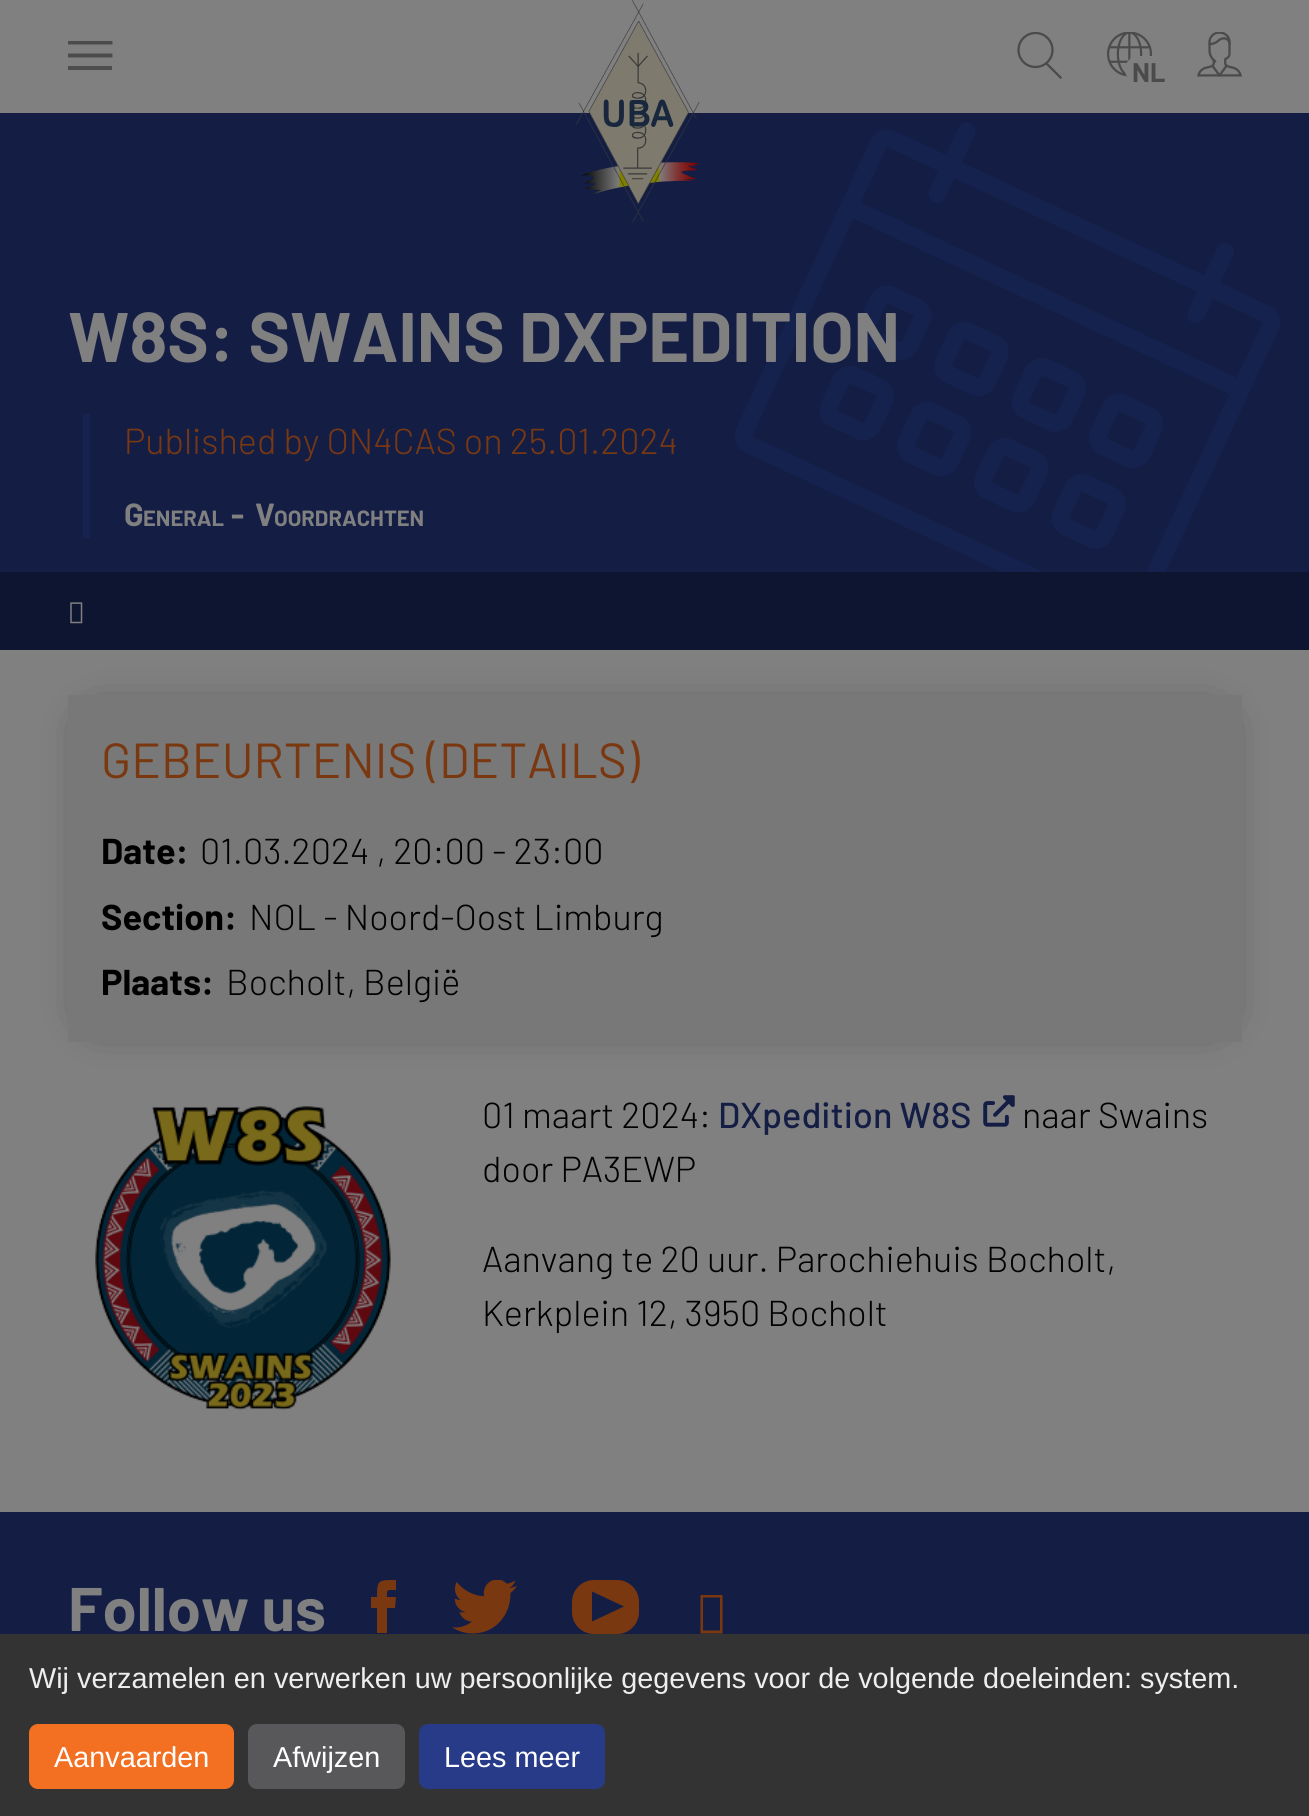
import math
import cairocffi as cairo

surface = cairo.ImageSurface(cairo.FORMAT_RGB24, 1309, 1816)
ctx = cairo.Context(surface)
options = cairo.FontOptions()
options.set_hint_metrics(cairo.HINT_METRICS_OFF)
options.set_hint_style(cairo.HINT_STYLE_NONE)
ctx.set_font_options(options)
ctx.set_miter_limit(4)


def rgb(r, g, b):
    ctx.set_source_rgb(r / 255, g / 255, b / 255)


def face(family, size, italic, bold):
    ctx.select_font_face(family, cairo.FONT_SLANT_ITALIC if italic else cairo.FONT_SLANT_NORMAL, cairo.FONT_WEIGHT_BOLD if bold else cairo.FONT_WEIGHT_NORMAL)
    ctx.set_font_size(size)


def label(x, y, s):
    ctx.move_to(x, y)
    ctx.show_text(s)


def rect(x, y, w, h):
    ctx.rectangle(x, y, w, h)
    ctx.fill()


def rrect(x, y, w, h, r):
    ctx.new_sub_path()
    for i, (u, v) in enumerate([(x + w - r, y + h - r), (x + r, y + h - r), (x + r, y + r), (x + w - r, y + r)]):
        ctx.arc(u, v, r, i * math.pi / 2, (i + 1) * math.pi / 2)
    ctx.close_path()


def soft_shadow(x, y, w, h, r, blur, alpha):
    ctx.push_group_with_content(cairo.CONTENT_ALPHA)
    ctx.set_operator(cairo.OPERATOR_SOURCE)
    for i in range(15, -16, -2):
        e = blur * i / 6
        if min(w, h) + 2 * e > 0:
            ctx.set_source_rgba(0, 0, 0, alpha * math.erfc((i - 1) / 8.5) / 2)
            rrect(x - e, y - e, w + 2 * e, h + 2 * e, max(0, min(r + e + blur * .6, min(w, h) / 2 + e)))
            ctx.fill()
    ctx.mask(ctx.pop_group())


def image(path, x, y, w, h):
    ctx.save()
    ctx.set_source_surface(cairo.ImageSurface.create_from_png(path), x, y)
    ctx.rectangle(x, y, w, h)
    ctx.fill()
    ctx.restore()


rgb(128, 128, 128)
ctx.paint()
ctx.save()
ctx.rectangle(68, 41, 45, 31)
ctx.clip()
ctx.new_path()
ctx.move_to(69.5, 42.5)
ctx.line_to(110.5, 42.5)
ctx.move_to(69.5, 55.5)
ctx.line_to(110.5, 55.5)
rgb(75, 75, 75)
ctx.set_line_width(3.9)
ctx.set_line_cap(cairo.LINE_CAP_SQUARE)
ctx.stroke()
ctx.restore()
rgb(77, 77, 77)
rect(68, 66, 44, 4)
rgb(20, 30, 69)
rect(0, 113, 1309, 459)
image('image0.png', 576, 0, 124, 223)
ctx.save()
ctx.rectangle(1017, 32, 45, 49)
ctx.clip()
ctx.arc(1035.5, 50, 17, 0, 2 * math.pi)
rgb(75, 75, 75)
ctx.set_line_width(2.3)
ctx.stroke()
ctx.restore()
ctx.new_path()
ctx.move_to(1046.5, 63.5)
ctx.line_to(1060.5, 77.5)
rgb(75, 75, 75)
ctx.set_line_width(2.3)
ctx.set_line_cap(cairo.LINE_CAP_SQUARE)
ctx.stroke()
image('image1.png', 1107, 32, 45, 45)
rgb(128, 128, 128)
rrect(1125, 56, 47, 27, 13.5)
ctx.fill()
face('Barlow', 27, 0, 1)
rgb(75, 75, 75)
label(1132, 82, 'NL')
image('image2.png', 1197, 32, 45, 45)
image('image3.png', 734, 122, 546, 450)
face('Barlow', 70, 0, 1)
rgb(128, 128, 128)
label(68, 362, 'W8S: SWAINS DXPEDITION')
rgb(23, 34, 79)
rect(83, 414, 7, 124)
face('Barlow Light', 36, 0, 0)
rgb(122, 56, 17)
label(124, 454, 'Published by ON4CAS on 25.01.2024')
face('Barlow', 32, 0, 1)
rgb(128, 128, 128)
label(124, 526, 'G')
face('Barlow', 22, 0, 1)
label(143, 526, 'ENERAL')
face('Barlow', 32, 0, 1)
label(231, 526, '-')
label(255, 526, 'V')
face('Barlow', 22, 0, 1)
label(274, 526, 'OORDRACHTEN')
rgb(14, 21, 49)
rect(0, 572, 1309, 78)
image('image4.png', 70, 602, 13, 22)
rgb(0, 0, 0)
soft_shadow(97, 725, 1116, 288, 0, 22.5, 0.75)
rgb(120, 120, 120)
rect(68, 695, 1174, 347)
face('Barlow', 49.25, 0, 0)
rgb(122, 56, 17)
label(101, 778, 'GEBEURTENIS (DETAILS)')
face('Barlow', 36, 0, 1)
rgb(0, 0, 0)
label(101, 864, 'Date:')
face('Barlow Light', 36, 0, 0)
label(200, 864, '01.03.2024 , 20:00 - 23:00')
face('Barlow', 36, 0, 1)
label(101, 930, 'Section:')
face('Barlow Light', 36, 0, 0)
label(249, 930, 'NOL - Noord-Oost Limburg')
face('Barlow', 36, 0, 1)
label(101, 995, 'Plaats:')
face('Barlow Light', 36, 0, 0)
label(226, 995, 'Bocholt, België')
image('image5.png', 95, 1106, 296, 304)
label(482, 1128, '01 maart 2024:')
face('Barlow Medium', 36, 0, 0)
rgb(20, 30, 69)
label(718, 1128, 'DXpedition W8S')
image('image6.png', 983, 1095, 32, 32)
face('Barlow Light', 36, 0, 0)
rgb(0, 0, 0)
label(1022, 1128, 'naar Swains')
label(482, 1182, 'door PA3EWP')
label(482, 1272, 'Aanvang te 20 uur. Parochiehuis Bocholt,')
label(482, 1326, 'Kerkplein 12, 3950 Bocholt')
rgb(20, 30, 69)
rect(0, 1512, 1309, 122)
face('Barlow', 61.5, 0, 1)
rgb(128, 128, 128)
label(68, 1631, 'Follow us')
rgb(122, 56, 17)
ctx.new_path()
ctx.move_to(389, 1590)
ctx.line_to(396, 1590)
ctx.line_to(396, 1580)
ctx.curve_to(378, 1580, 377, 1580, 377, 1597)
ctx.line_to(371, 1597)
ctx.line_to(371, 1608)
ctx.line_to(377, 1608)
ctx.line_to(377, 1633)
ctx.line_to(387, 1633)
ctx.line_to(387, 1608)
ctx.line_to(395, 1608)
ctx.line_to(396, 1597)
ctx.line_to(387, 1597)
ctx.curve_to(387, 1596, 386, 1590, 389, 1590)
ctx.fill()
image('image7.png', 452, 1580, 65, 54)
rrect(572, 1580, 67, 54, 22)
ctx.fill()
rgb(20, 30, 69)
ctx.new_path()
ctx.move_to(624, 1606.5)
ctx.line_to(592, 1621.5)
ctx.line_to(592, 1591.5)
ctx.close_path()
ctx.fill()
rgb(122, 56, 17)
ctx.new_path()
ctx.move_to(700.5, 1633.5)
ctx.line_to(700.5, 1595)
ctx.line_to(722.5, 1595)
ctx.line_to(722.5, 1633.5)
ctx.close_path()
ctx.move_to(703, 1630.5)
ctx.line_to(720, 1630.5)
ctx.line_to(720, 1597.5)
ctx.line_to(703, 1597.5)
ctx.close_path()
ctx.fill()
rgb(51, 51, 51)
rect(0, 1634, 1309, 182)
face('Liberation Sans', 28.8, 0, 0)
rgb(238, 238, 238)
label(29, 1688, 'Wij verzamelen en verwerken uw persoonlijke gegevens voor de volgende doeleinden: system.')
rgb(243, 111, 33)
rrect(29, 1724, 205, 65, 9)
ctx.fill()
rgb(255, 255, 255)
label(54, 1767, 'Aanvaarden')
rgb(88, 88, 91)
rrect(248, 1724, 157, 65, 9)
ctx.fill()
rgb(255, 255, 255)
label(273, 1767, 'Afwijzen')
rgb(39, 59, 137)
rrect(419, 1724, 186, 65, 9)
ctx.fill()
rgb(255, 255, 255)
label(444, 1767, 'Lees meer')
surface.write_to_png('render.png')
